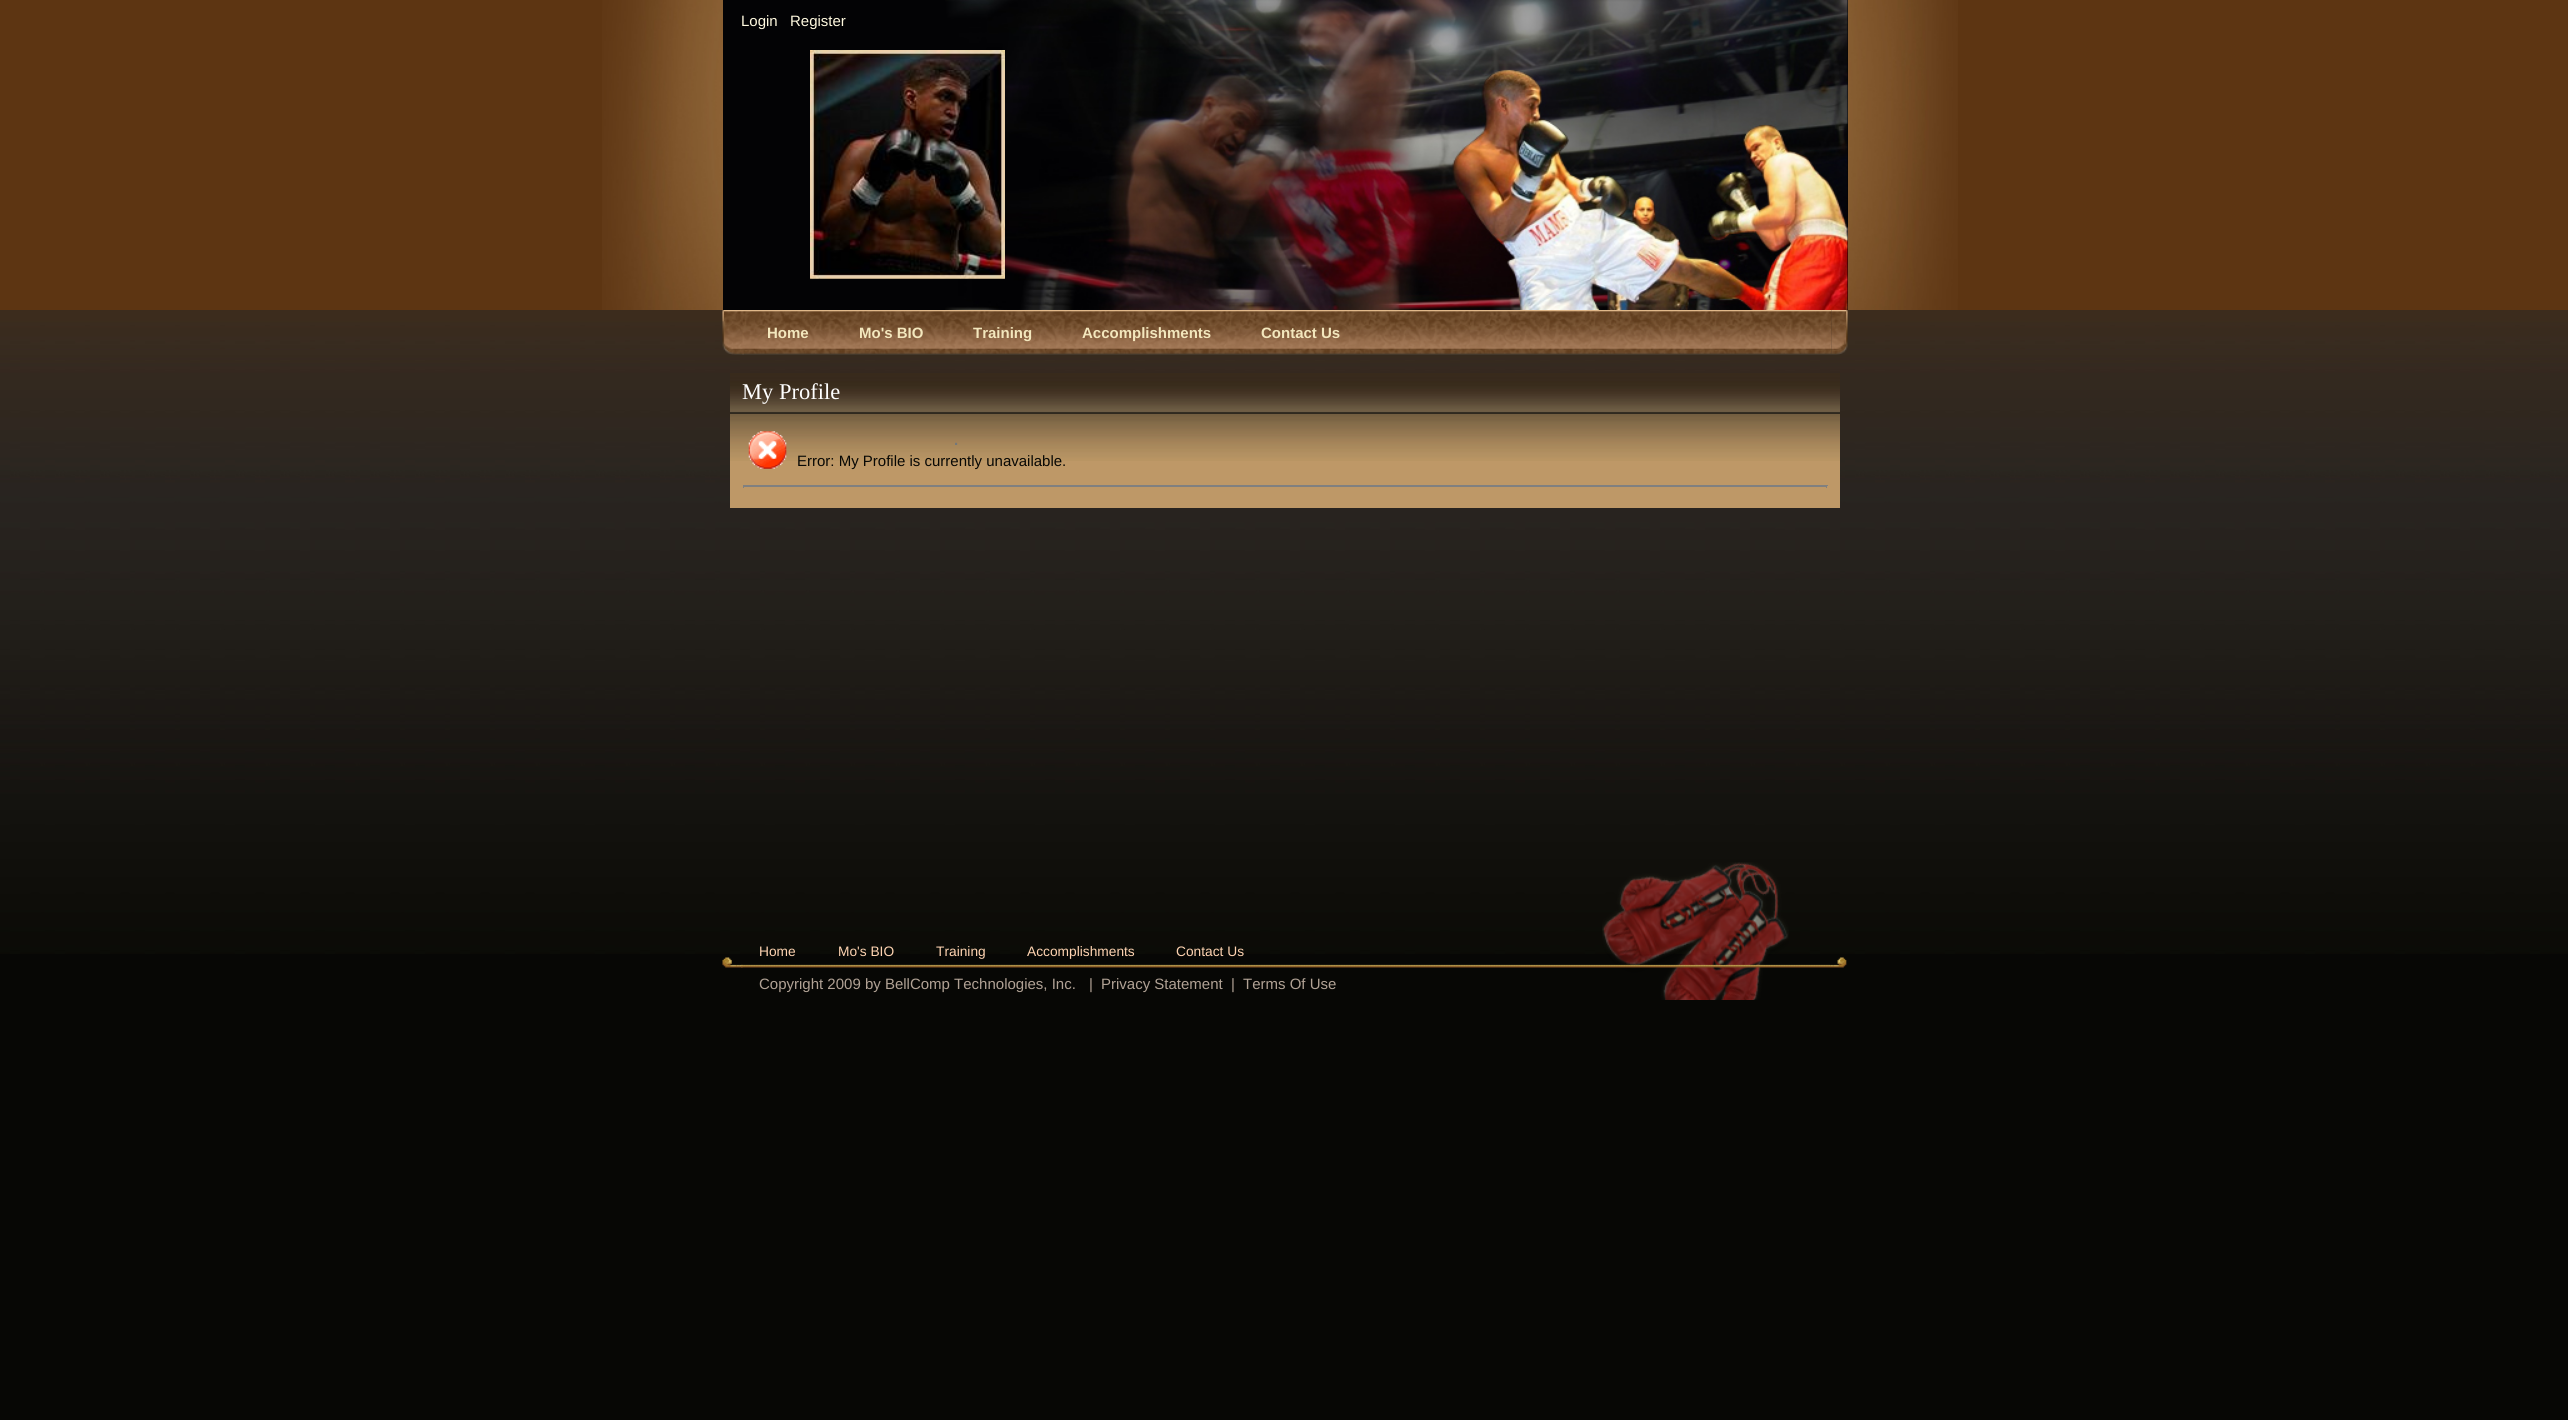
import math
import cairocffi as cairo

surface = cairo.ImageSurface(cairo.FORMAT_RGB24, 2568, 1420)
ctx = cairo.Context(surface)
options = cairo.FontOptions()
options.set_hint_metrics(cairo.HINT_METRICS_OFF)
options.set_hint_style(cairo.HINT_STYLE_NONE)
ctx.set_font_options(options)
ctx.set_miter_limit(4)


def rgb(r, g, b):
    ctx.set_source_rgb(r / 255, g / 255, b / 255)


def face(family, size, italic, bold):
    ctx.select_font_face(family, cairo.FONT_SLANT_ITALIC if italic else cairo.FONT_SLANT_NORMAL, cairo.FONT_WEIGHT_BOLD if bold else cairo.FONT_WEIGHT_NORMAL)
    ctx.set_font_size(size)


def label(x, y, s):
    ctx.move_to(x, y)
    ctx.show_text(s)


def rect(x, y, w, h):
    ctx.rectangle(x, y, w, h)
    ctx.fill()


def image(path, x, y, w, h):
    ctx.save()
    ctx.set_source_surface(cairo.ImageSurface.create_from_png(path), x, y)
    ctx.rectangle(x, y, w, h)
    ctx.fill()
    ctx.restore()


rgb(7, 7, 5)
ctx.paint()
image('image0.png', 0, 310, 2568, 644)
rgb(93, 53, 18)
rect(0, 0, 2568, 310)
image('image1.png', 602, 0, 1356, 310)
image('image2.png', 1602, 862, 187, 138)
rgb(3, 3, 5)
rect(723, 0, 1125, 310)
image('image3.png', 945, 0, 903, 310)
face('Liberation Sans', 15, 0, 0)
rgb(255, 249, 223)
label(741, 26, 'Login')
label(790, 26, 'Register')
image('image4.png', 810, 50, 195, 229)
image('image5.png', 722, 310, 22, 45)
image('image6.png', 1831, 310, 17, 45)
image('image7.png', 742, 310, 1090, 45)
face('Liberation Sans', 15, 0, 1)
rgb(243, 231, 189)
label(767, 338, 'Home')
label(859, 338, 'Mo\'s BIO')
label(973, 338, 'Training')
label(1082, 338, 'Accomplishments')
label(1261, 338, 'Contact Us')
image('image8.png', 730, 373, 1110, 40)
face('Liberation Serif', 22.5, 0, 0)
rgb(255, 255, 255)
label(742, 399, 'My Profile')
rgb(190, 152, 103)
rect(730, 461, 1110, 47)
image('image9.png', 730, 412, 1110, 49)
image('image10.png', 748, 431, 39, 38)
face('Liberation Sans', 15, 0, 1)
rgb(115, 119, 122)
label(954, 445, '.')
face('Liberation Sans', 15, 0, 0)
rgb(8, 8, 5)
label(797, 466, 'Error: My Profile is currently unavailable.')
rgb(128, 128, 128)
rect(744, 486, 1082, 1)
rect(743, 485, 1085, 1)
rect(1826, 485, 1, 3)
rect(743, 485, 1, 3)
image('image11.png', 722, 957, 21, 11)
image('image12.png', 1830, 957, 17, 11)
image('image13.png', 741, 964, 1089, 4)
face('Liberation Sans', 13.75, 0, 0)
rgb(255, 212, 178)
label(759, 956, 'Home')
label(838, 956, 'Mo\'s BIO')
label(936, 956, 'Training')
label(1027, 956, 'Accomplishments')
label(1176, 956, 'Contact Us')
face('Liberation Sans', 15, 0, 0)
rgb(177, 162, 149)
label(759, 989, 'Copyright 2009 by BellComp Technologies, Inc.')
label(1089, 989, '|')
label(1101, 989, 'Privacy Statement')
label(1231, 989, '|')
label(1243, 989, 'Terms Of Use')
surface.write_to_png('render.png')
